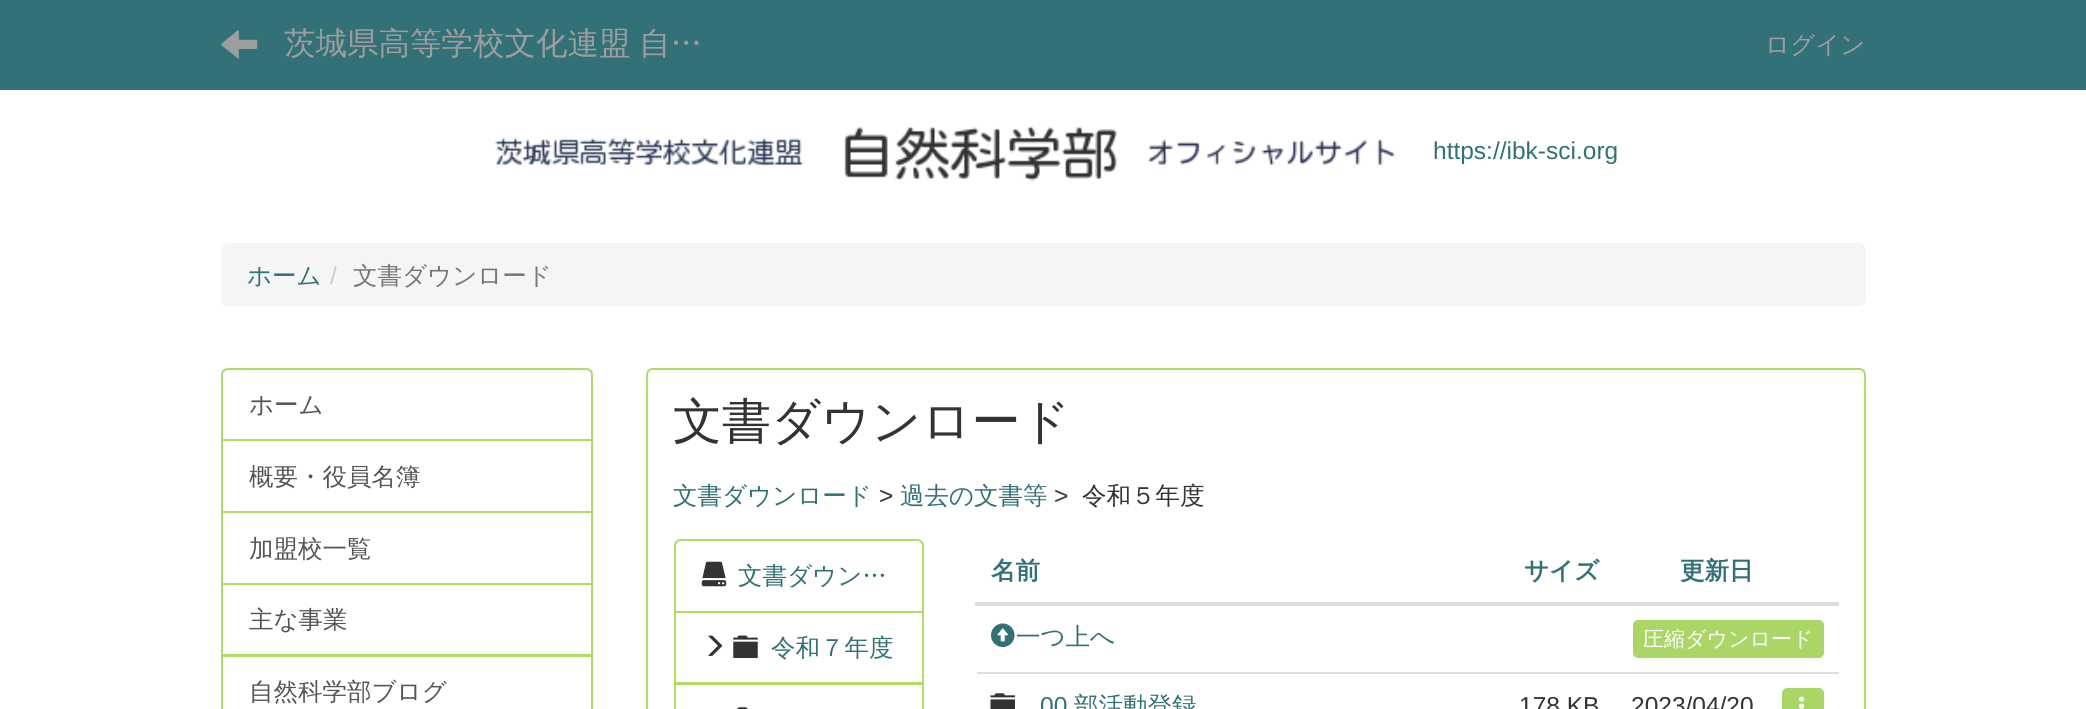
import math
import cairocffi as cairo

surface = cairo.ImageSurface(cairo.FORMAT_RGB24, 2086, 709)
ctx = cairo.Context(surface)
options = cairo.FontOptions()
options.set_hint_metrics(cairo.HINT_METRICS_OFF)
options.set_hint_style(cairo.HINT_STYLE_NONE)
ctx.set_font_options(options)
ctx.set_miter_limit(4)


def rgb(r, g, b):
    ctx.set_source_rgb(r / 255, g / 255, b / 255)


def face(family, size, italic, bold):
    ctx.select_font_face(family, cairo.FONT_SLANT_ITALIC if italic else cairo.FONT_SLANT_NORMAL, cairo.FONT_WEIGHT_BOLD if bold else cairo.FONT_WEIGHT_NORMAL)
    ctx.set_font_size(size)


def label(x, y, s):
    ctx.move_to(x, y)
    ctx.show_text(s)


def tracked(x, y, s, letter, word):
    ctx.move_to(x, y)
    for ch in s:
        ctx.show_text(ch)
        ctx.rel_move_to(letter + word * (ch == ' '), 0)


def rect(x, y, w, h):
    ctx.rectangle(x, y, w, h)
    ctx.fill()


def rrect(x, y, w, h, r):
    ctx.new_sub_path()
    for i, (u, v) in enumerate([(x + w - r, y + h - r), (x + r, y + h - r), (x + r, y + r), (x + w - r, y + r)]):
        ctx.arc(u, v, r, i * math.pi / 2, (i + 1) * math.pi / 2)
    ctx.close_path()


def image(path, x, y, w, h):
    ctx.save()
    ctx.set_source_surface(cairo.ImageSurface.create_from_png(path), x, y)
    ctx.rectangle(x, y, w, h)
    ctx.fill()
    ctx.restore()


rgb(255, 255, 255)
ctx.paint()
rgb(50, 113, 119)
rect(0, 0, 2086, 90)
image('image0.png', 221, 30, 37, 29)
face('WenQuanYi Zen Hei Medium', 31.5, 0, 0)
rgb(157, 157, 157)
tracked(284, 54, '茨城県高等学校文化連盟 自…', 0, -1)
face('WenQuanYi Zen Hei Medium', 24.5, 0, 0)
label(1765, 53, 'ログイン')
image('image1.png', 495, 137, 309, 30)
image('image2.png', 844, 126, 273, 55)
image('image3.png', 1147, 139, 249, 26)
face('Liberation Sans', 24.5, 0, 0)
rgb(50, 113, 119)
label(1433, 159, 'https://ibk-sci.org')
rgb(245, 245, 245)
rrect(221, 243, 1645, 63, 7)
ctx.fill()
face('WenQuanYi Zen Hei Medium', 24.5, 0, 0)
rgb(50, 113, 119)
label(247, 284, 'ホーム')
face('Liberation Sans', 24.5, 0, 0)
rgb(204, 204, 204)
label(330, 284, '/')
face('WenQuanYi Zen Hei Medium', 24.5, 0, 0)
rgb(119, 119, 119)
label(353, 284, '文書ダウンロード')
ctx.new_path()
ctx.move_to(228, 369)
ctx.line_to(586, 369)
ctx.curve_to(589.5, 369, 592, 371.5, 592, 375)
ctx.line_to(592, 440)
ctx.line_to(222, 440)
ctx.line_to(222, 375)
ctx.curve_to(222, 371.5, 224.5, 369, 228, 369)
ctx.close_path()
rgb(176, 219, 103)
ctx.stroke()
rgb(85, 85, 85)
label(249, 413, 'ホーム')
ctx.rectangle(222, 440, 370, 72)
rgb(176, 219, 103)
ctx.stroke()
rgb(85, 85, 85)
label(249, 485, '概要・役員名簿')
ctx.rectangle(222, 512, 370, 72)
rgb(176, 219, 103)
ctx.stroke()
rgb(85, 85, 85)
label(249, 557, '加盟校一覧')
ctx.rectangle(222, 584, 370, 71)
rgb(176, 219, 103)
ctx.stroke()
rgb(85, 85, 85)
label(249, 628, '主な事業')
ctx.rectangle(222, 656, 370, 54)
rgb(176, 219, 103)
ctx.stroke()
rgb(85, 85, 85)
label(249, 700, '自然科学部ブログ')
rrect(647, 369, 1218, 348, 6)
rgb(176, 219, 103)
ctx.stroke()
face('WenQuanYi Zen Hei Medium', 49, 0, 0)
rgb(51, 51, 51)
label(673, 438, '文書ダウンロード')
face('WenQuanYi Zen Hei Medium', 24.5, 0, 0)
rgb(50, 113, 119)
label(673, 504, '文書ダウンロード')
face('Liberation Sans', 24.5, 0, 0)
rgb(51, 51, 51)
label(879, 504, '>')
face('WenQuanYi Zen Hei Medium', 24.5, 0, 0)
rgb(50, 113, 119)
label(900, 504, '過去の文書等')
face('Liberation Sans', 24.5, 0, 0)
rgb(51, 51, 51)
label(1054, 504, '>')
face('WenQuanYi Zen Hei Medium', 24.5, 0, 0)
label(1082, 504, '令和５年度')
ctx.new_path()
ctx.move_to(681, 540)
ctx.line_to(917, 540)
ctx.curve_to(920.5, 540, 923, 542.5, 923, 546)
ctx.line_to(923, 612)
ctx.line_to(675, 612)
ctx.line_to(675, 546)
ctx.curve_to(675, 542.5, 677.5, 540, 681, 540)
ctx.close_path()
rgb(176, 219, 103)
ctx.stroke()
image('image4.png', 701, 561, 26, 26)
rgb(50, 113, 119)
label(738, 584, '文書ダウン…')
ctx.rectangle(675, 612, 248, 71)
rgb(176, 219, 103)
ctx.stroke()
image('image5.png', 708, 635, 15, 21)
image('image6.png', 733, 635, 25, 23)
rgb(50, 113, 119)
label(771, 656, '令和７年度')
ctx.rectangle(675, 684, 248, 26)
rgb(176, 219, 103)
ctx.stroke()
image('image7.png', 737, 707, 11, 2)
face('WenQuanYi Zen Hei', 24.5, 0, 1)
rgb(50, 113, 119)
label(991, 579, '名前')
label(1524, 579, 'サイズ')
label(1680, 579, '更新日')
rgb(221, 221, 221)
rect(975, 602, 864, 4)
image('image8.png', 990, 623, 25, 25)
face('WenQuanYi Zen Hei Medium', 24.5, 0, 0)
rgb(50, 113, 119)
label(1016, 645, '一つ上へ')
rgb(170, 214, 102)
rrect(1634, 621, 189, 36, 4)
ctx.fill_preserve()
ctx.stroke()
face('WenQuanYi Zen Hei Medium', 21, 0, 0)
rgb(255, 255, 255)
label(1643, 646, '圧縮ダウンロード')
rgb(221, 221, 221)
rect(977, 672, 862, 2)
rgb(170, 214, 102)
rrect(1783, 689, 40, 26, 4)
ctx.fill_preserve()
ctx.stroke()
image('image9.png', 1799, 696, 6, 13)
image('image10.png', 990, 693, 25, 16)
face('Liberation Sans', 24.5, 0, 0)
rgb(50, 113, 119)
label(1040, 714, '00')
face('WenQuanYi Zen Hei Medium', 24.5, 0, 0)
label(1074, 714, '部活動登録')
face('Liberation Sans', 24.5, 0, 0)
rgb(51, 51, 51)
label(1519, 714, '178 KB')
label(1631, 714, '2023/04/20')
surface.write_to_png('render.png')
